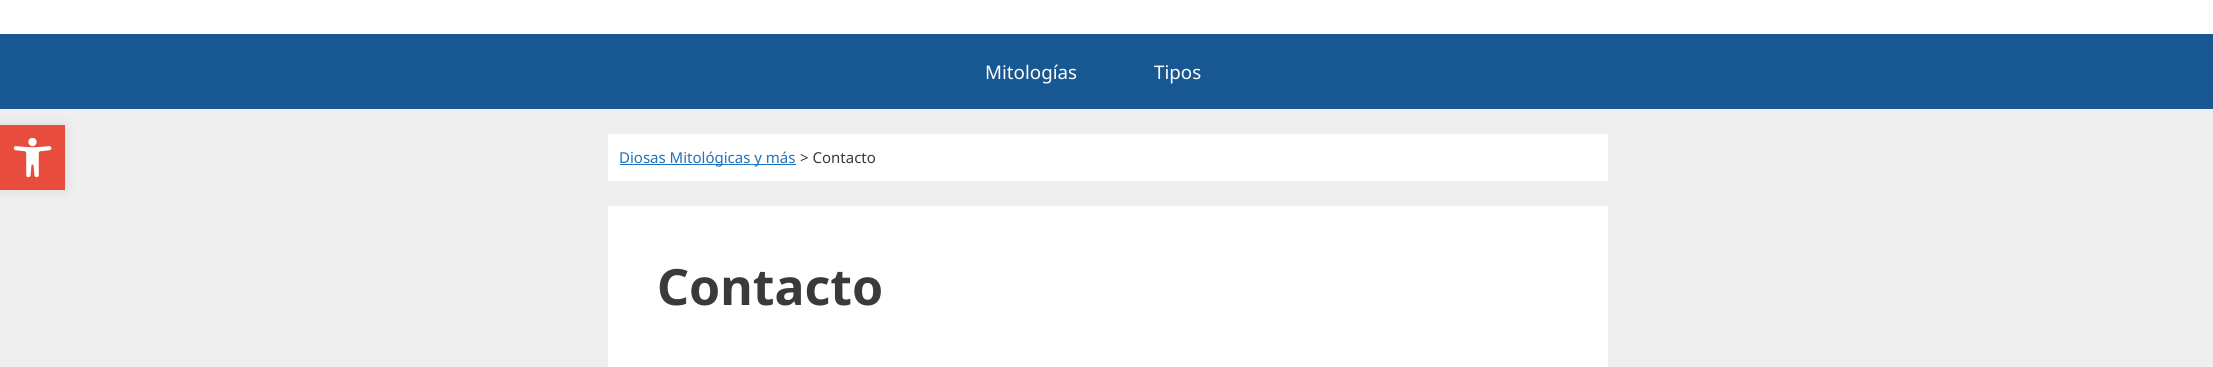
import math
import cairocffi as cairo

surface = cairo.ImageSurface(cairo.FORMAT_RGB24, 2213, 367)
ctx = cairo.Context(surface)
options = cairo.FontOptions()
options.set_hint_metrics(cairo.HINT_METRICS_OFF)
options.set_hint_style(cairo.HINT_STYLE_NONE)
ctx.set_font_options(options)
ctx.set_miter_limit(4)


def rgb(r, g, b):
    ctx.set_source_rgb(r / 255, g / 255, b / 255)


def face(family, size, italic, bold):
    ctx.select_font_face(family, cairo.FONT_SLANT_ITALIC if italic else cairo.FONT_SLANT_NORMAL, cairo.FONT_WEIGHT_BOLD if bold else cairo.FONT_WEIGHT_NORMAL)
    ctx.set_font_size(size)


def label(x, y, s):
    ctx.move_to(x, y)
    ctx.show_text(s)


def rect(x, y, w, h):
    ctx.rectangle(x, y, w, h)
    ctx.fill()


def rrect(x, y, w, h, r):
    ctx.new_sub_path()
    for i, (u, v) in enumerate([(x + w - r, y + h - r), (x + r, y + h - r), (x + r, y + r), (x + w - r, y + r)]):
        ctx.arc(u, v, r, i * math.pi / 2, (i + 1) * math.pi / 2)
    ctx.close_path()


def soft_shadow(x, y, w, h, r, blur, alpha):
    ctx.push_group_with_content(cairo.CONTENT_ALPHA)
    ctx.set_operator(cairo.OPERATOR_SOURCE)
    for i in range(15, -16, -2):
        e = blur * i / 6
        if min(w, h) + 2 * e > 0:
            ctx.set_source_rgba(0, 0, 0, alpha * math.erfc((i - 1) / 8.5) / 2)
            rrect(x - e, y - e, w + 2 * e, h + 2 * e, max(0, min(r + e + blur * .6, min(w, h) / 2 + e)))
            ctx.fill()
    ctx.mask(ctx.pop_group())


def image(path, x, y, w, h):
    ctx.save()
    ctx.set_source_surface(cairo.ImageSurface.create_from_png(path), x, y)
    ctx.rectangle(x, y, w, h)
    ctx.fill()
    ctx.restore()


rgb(239, 239, 239)
ctx.paint()
rgb(255, 255, 255)
rect(0, 0, 2213, 34)
rgb(23, 88, 146)
rect(0, 34, 2213, 75)
face('Noto Sans', 18.75, 0, 0)
rgb(255, 255, 255)
label(985, 79, 'Mitologías')
label(1154, 79, 'Tipos')
rgb(0, 0, 0)
soft_shadow(0, 125, 65, 65, 0, 6, 0.1)
rgb(231, 76, 60)
rect(0, 125, 65, 65)
image('image0.png', 13, 138, 39, 40)
rgb(255, 255, 255)
rect(608, 134, 1000, 47)
rgb(30, 115, 190)
rect(620, 164, 176, 1)
face('Noto Sans', 15, 0, 0)
label(619, 163, 'Diosas Mitológicas y más')
rgb(58, 58, 58)
label(800, 163, '> Contacto')
rgb(255, 255, 255)
rect(608, 206, 1000, 161)
face('Noto Sans', 50, 0, 1)
rgb(58, 58, 58)
label(657, 305, 'Contacto')
surface.write_to_png('render.png')
